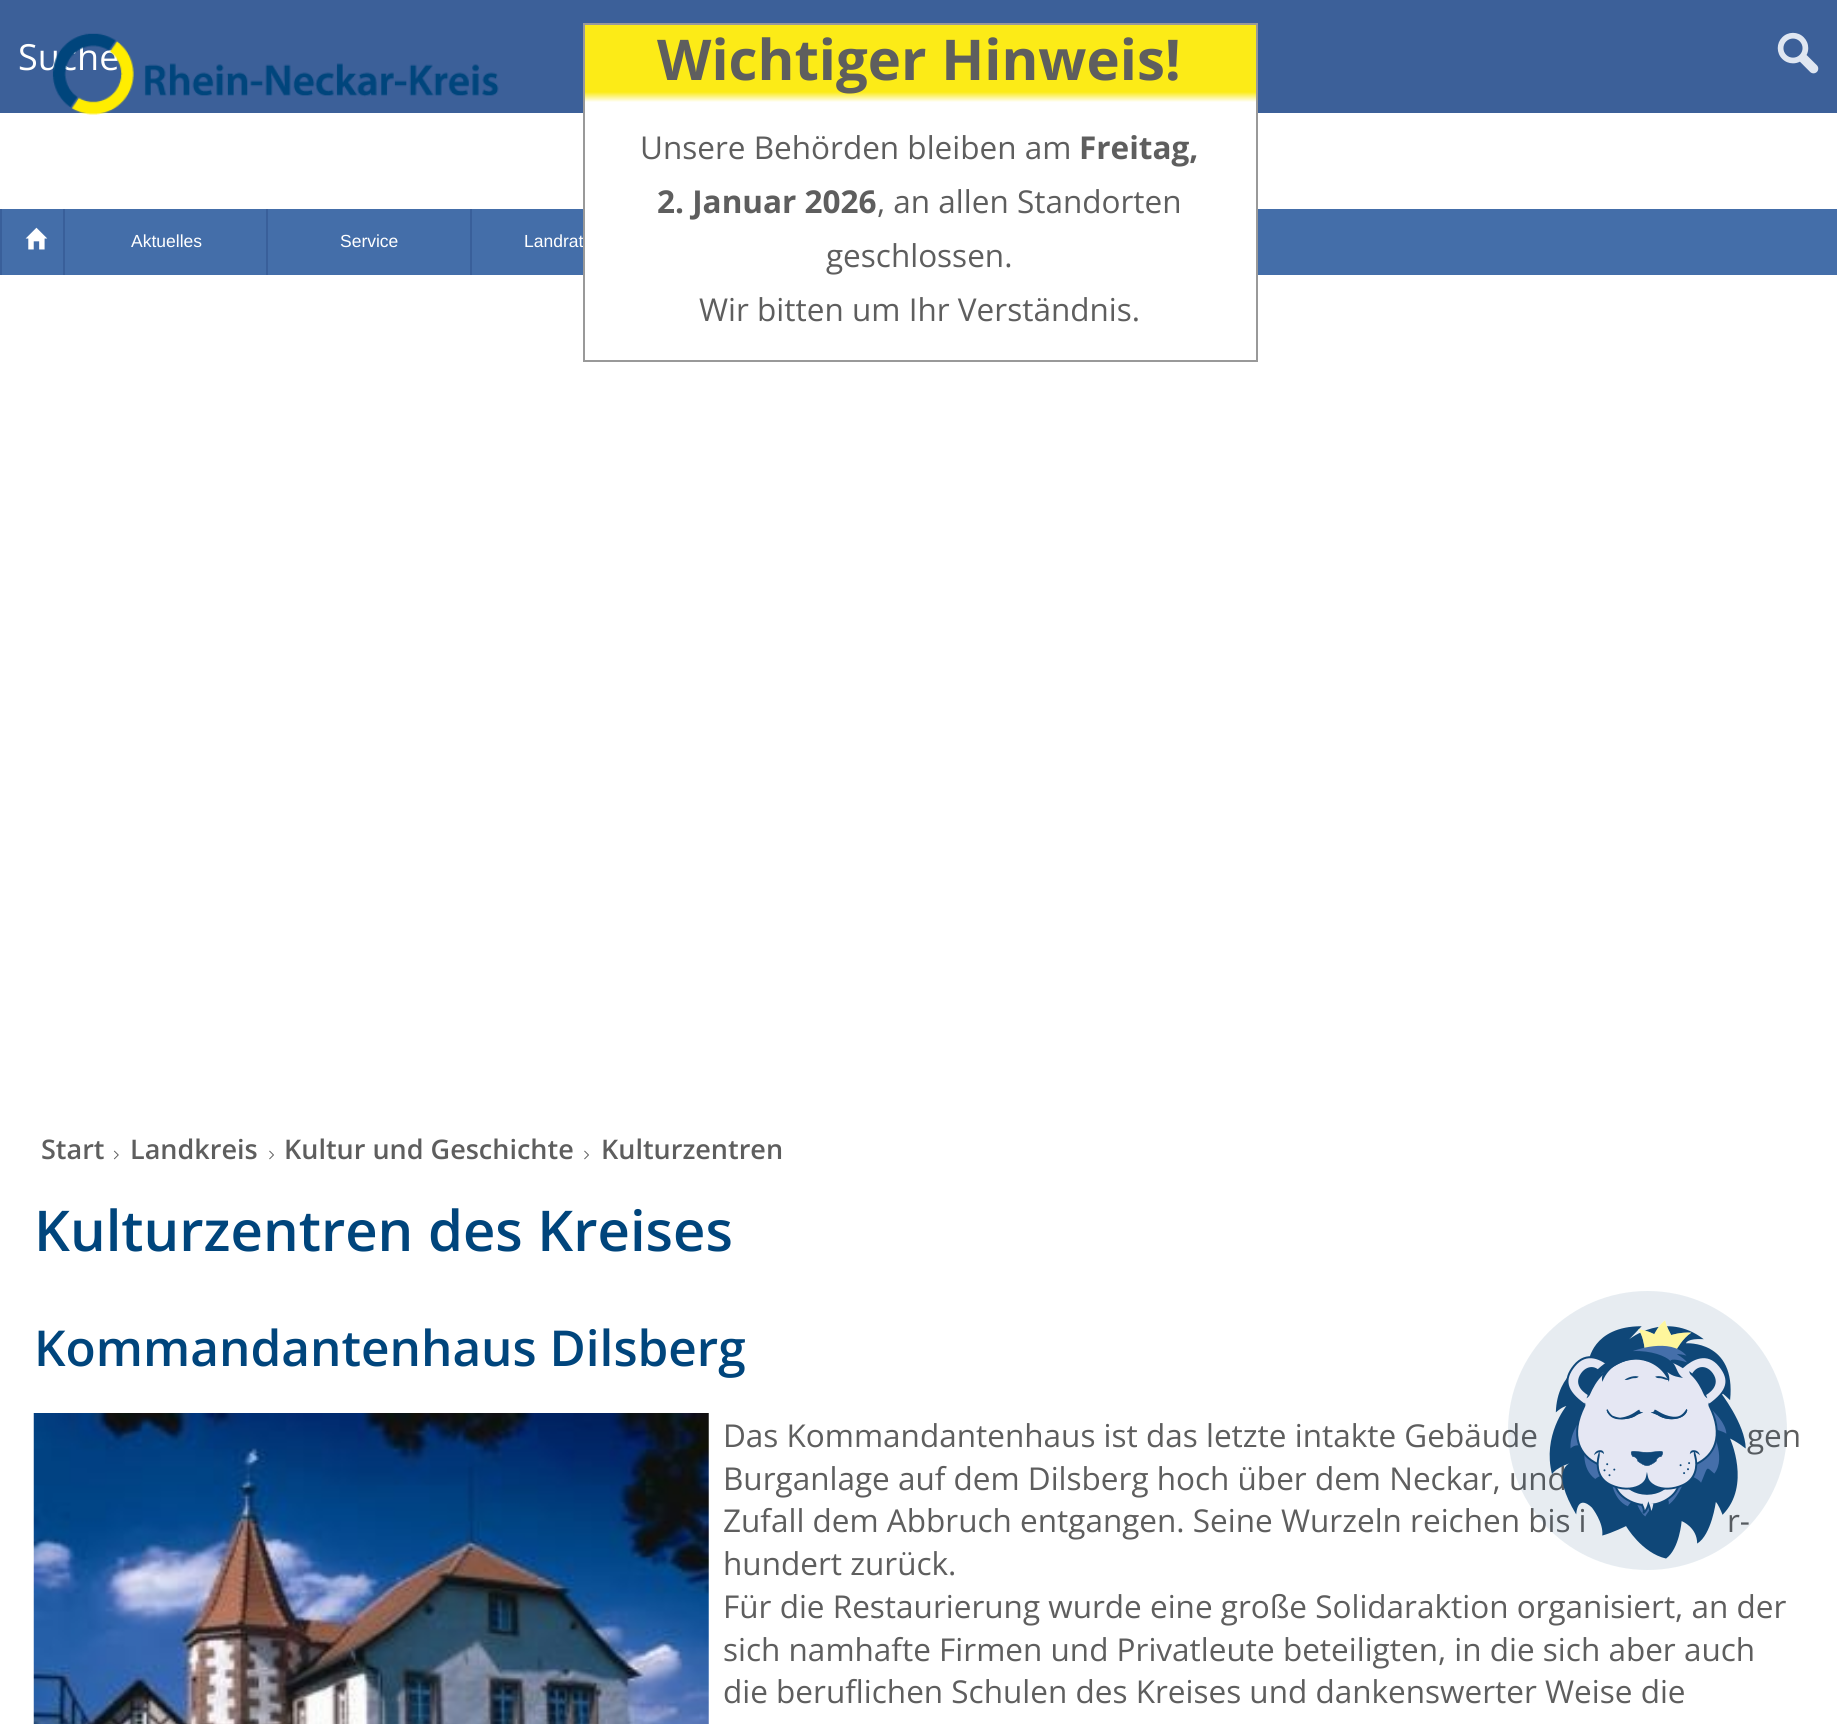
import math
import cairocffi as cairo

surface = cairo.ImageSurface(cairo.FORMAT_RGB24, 1837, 1724)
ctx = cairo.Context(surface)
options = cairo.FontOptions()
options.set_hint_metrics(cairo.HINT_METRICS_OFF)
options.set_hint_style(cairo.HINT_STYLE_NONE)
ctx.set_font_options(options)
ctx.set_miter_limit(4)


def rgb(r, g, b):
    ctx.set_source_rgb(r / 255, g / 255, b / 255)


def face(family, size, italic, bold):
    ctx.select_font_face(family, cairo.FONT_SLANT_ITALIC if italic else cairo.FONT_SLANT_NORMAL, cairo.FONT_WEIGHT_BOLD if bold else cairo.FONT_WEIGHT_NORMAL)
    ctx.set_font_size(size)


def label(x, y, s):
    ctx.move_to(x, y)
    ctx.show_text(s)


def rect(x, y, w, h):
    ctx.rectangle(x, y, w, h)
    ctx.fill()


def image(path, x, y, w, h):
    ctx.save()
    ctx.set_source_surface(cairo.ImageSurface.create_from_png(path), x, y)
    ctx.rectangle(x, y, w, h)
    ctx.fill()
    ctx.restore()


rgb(255, 255, 255)
ctx.paint()
rgb(60, 96, 153)
rect(0, 0, 1837, 113)
rgb(68, 110, 169)
rect(2, 209, 1835, 66)
gradient = cairo.LinearGradient(920, 25, 920, 360)
gradient.add_color_stop_rgba(0, 0.988, 0.922, 0.09, 1)
gradient.add_color_stop_rgba(0.2, 0.988, 0.922, 0.09, 1)
gradient.add_color_stop_rgba(0.23, 1, 1, 1, 1)
ctx.set_source(gradient)
rect(585, 25, 671, 250)
ctx.rectangle(584, 24, 673, 337)
rgb(153, 153, 153)
ctx.stroke()
face('Open Sans', 56.25, 0, 1)
rgb(94, 94, 94)
label(657, 80, 'Wichtiger Hinweis!')
face('Open Sans', 31.5, 0, 0)
label(640, 159, 'Unsere Behörden bleiben am')
face('Open Sans', 31.5, 0, 1)
label(1079, 159, 'Freitag,')
label(657, 213, '2. Januar 2026')
face('Open Sans', 31.5, 0, 0)
label(877, 213, ', an allen Standorten')
label(826, 267, 'geschlossen.')
label(699, 321, 'Wir bitten um Ihr Verständnis.')
face('Open Sans', 36, 0, 0)
rgb(255, 255, 255)
label(18, 70, 'Suche')
image('image0.png', 52, 33, 447, 82)
image('image1.png', 1777, 32, 42, 42)
rgb(57, 95, 154)
rect(0, 209, 2, 66)
image('image2.png', 25, 227, 23, 23)
rect(63, 209, 2, 66)
face('Liberation Sans', 17.5, 0, 0)
rgb(255, 255, 255)
label(131, 247, 'Aktuelles')
rgb(57, 95, 154)
rect(266, 209, 2, 66)
rgb(255, 255, 255)
label(340, 247, 'Service')
rgb(57, 95, 154)
rect(470, 209, 2, 66)
rgb(255, 255, 255)
label(524, 247, 'Landrat')
face('Open Sans SemiBold', 27, 0, 0)
rgb(94, 94, 94)
label(41, 1159, 'Start')
image('image3.png', 113, 1150, 6, 10)
label(130, 1159, 'Landkreis')
image('image4.png', 269, 1150, 5, 10)
label(284, 1159, 'Kultur und Geschichte')
image('image4.png', 584, 1150, 5, 10)
label(601, 1159, 'Kulturzentren')
face('Open Sans SemiBold', 56.25, 0, 0)
rgb(0, 69, 124)
label(34, 1251, 'Kulturzentren des Kreises')
face('Open Sans SemiBold', 49.5, 0, 0)
label(34, 1366, 'Kommandantenhaus Dilsberg')
image('image5.png', 33, 1413, 676, 311)
face('Open Sans', 31.5, 0, 0)
rgb(94, 94, 94)
label(723, 1447, 'Das Kommandantenhaus ist das letzte intakte Gebäude')
label(1747, 1447, 'gen')
label(723, 1490, 'Burganlage auf dem Dilsberg hoch über dem Neckar, und')
label(723, 1532, 'Zufall dem Abbruch entgangen. Seine Wurzeln reichen bis i')
label(1727, 1532, 'r-')
label(723, 1575, 'hundert zurück.')
label(723, 1618, 'Für die Restaurierung wurde eine große Solidaraktion organisiert, an der')
label(723, 1661, 'sich namhafte Firmen und Privatleute beteiligten, in die sich aber auch')
label(723, 1703, 'die beruflichen Schulen des Kreises und dankenswerter Weise die')
image('image6.png', 1508, 1291, 279, 279)
surface.write_to_png('render.png')
